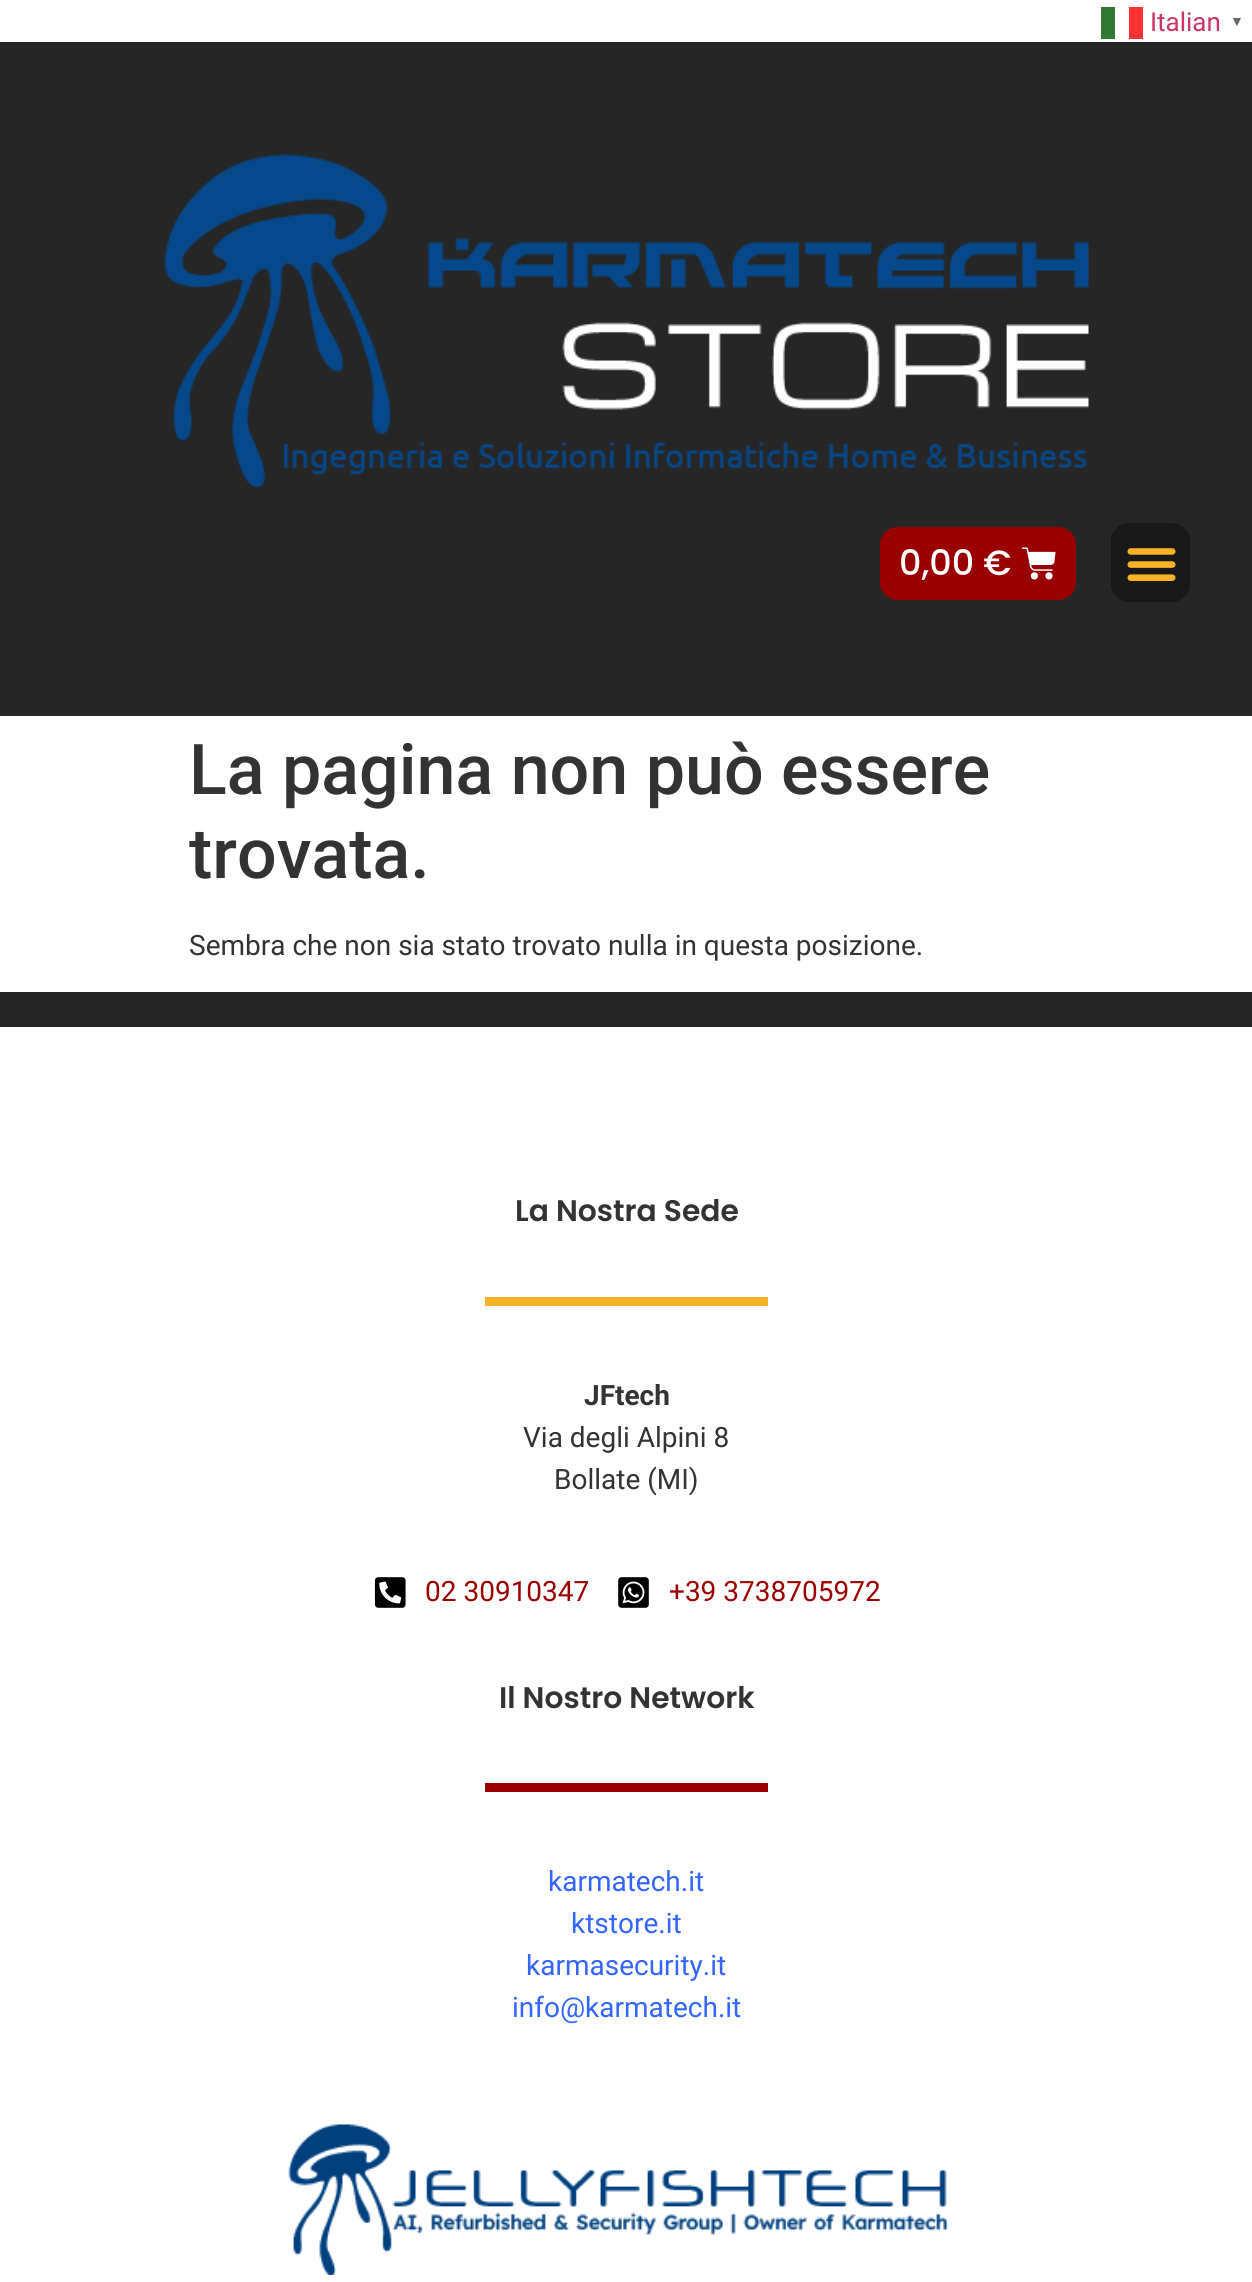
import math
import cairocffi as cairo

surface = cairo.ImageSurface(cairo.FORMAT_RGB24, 1252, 2282)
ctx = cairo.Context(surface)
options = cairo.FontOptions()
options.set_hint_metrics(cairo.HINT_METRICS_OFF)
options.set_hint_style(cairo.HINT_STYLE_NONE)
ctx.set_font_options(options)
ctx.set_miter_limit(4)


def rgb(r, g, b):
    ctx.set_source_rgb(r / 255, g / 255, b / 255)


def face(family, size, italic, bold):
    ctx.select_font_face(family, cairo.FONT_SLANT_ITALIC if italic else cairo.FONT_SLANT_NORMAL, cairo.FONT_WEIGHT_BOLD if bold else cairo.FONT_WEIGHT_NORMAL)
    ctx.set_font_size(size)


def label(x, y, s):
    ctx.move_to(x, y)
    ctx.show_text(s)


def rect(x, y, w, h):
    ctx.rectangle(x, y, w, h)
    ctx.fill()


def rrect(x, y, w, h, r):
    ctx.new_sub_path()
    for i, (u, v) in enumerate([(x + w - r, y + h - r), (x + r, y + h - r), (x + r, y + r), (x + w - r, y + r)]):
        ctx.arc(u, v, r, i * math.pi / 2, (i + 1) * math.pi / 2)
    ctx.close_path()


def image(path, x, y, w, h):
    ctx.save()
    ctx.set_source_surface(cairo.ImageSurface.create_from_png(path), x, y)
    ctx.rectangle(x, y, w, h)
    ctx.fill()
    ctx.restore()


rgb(255, 255, 255)
ctx.paint()
face('Roboto', 26, 0, 0)
rgb(204, 51, 102)
label(1150, 31, 'Italian')
rgb(51, 121, 51)
rect(1101, 7, 14, 32)
rgb(253, 51, 51)
rect(1129, 7, 14, 32)
face('Liberation Sans', 14, 0, 1)
rgb(102, 102, 102)
label(1230, 26, '▼')
rgb(38, 38, 38)
rect(0, 42, 1252, 674)
image('image0.png', 164, 154, 925, 335)
rgb(155, 0, 0)
rrect(881, 528, 194, 71, 17)
ctx.fill_preserve()
ctx.stroke()
face('Poppins Medium', 35, 0, 0)
rgb(255, 255, 255)
label(899, 575, '0,00 €')
image('image1.png', 1022, 547, 34, 33)
rgb(25, 25, 25)
rrect(1111, 523, 79, 79, 18)
ctx.fill()
image('image2.png', 1127, 548, 49, 33)
face('Roboto Medium', 70, 0, 0)
rgb(51, 51, 51)
label(189, 794, 'La pagina non può essere')
label(189, 878, 'trovata.')
face('Roboto', 28, 0, 0)
label(189, 955, 'Sembra che non sia stato trovato nulla in questa posizione.')
rgb(38, 38, 38)
rect(0, 992, 1252, 35)
face('Poppins SemiBold', 29.75, 0, 0)
rgb(51, 51, 51)
label(515, 1221, 'La Nostra Sede')
rgb(249, 177, 37)
rect(485, 1297, 283, 9)
face('Roboto', 28, 0, 1)
rgb(51, 51, 51)
label(584, 1405, 'JFtech')
face('Roboto', 28, 0, 0)
label(523, 1447, 'Via degli Alpini 8')
label(554, 1489, 'Bollate (MI)')
image('image3.png', 374, 1577, 32, 31)
rgb(155, 0, 0)
label(425, 1601, '02 30910347')
image('image4.png', 618, 1577, 31, 31)
label(669, 1601, '+39 3738705972')
face('Poppins SemiBold', 29.75, 0, 0)
rgb(51, 51, 51)
label(499, 1708, 'Il Nostro Network')
rgb(155, 0, 0)
rect(485, 1783, 283, 9)
face('Roboto', 28, 0, 0)
rgb(51, 102, 255)
label(548, 1891, 'karmatech.it')
label(571, 1933, 'ktstore.it')
label(526, 1975, 'karmasecurity.it')
label(512, 2017, 'info@karmatech.it')
image('image5.png', 288, 2124, 661, 151)
surface.write_to_png('render.png')
